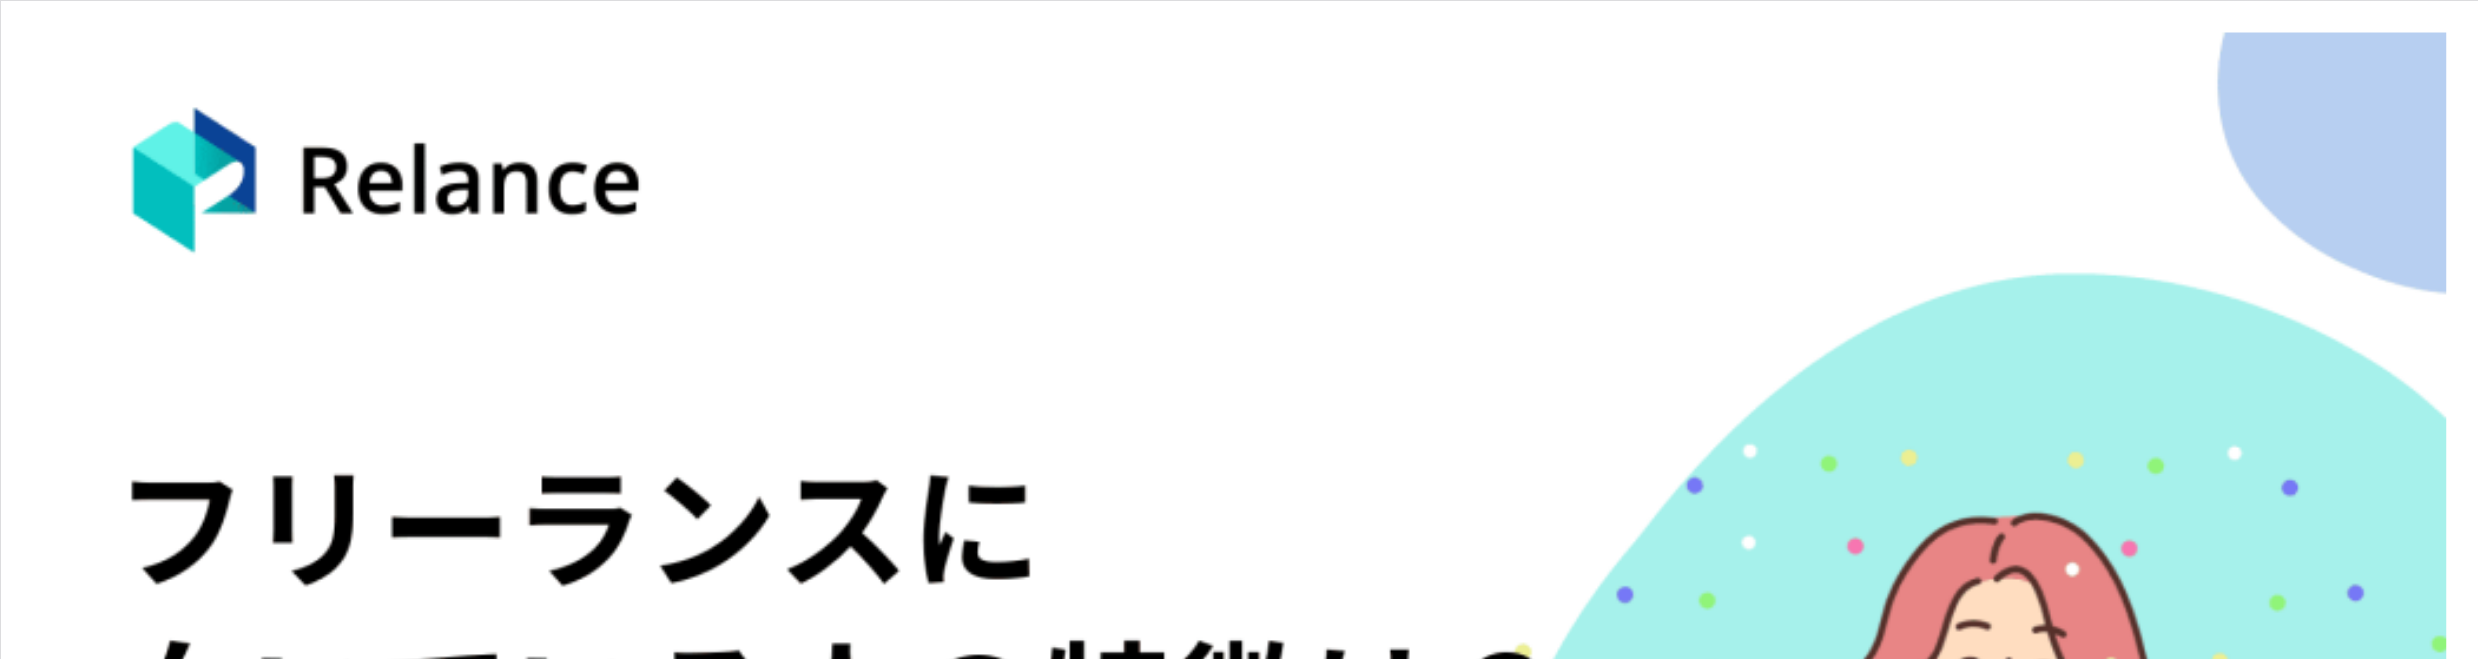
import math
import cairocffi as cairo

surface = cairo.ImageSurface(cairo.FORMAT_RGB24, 2478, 659)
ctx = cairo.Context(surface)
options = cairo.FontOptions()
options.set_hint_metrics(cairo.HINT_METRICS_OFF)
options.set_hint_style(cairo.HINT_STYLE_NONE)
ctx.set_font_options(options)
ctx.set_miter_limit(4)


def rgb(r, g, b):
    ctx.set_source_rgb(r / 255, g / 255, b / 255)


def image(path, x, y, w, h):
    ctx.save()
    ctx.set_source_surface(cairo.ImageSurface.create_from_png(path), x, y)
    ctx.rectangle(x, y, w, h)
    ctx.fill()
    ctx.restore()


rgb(255, 255, 255)
ctx.paint()
ctx.rectangle(0.5, 0.5, 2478, 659)
rgb(220, 220, 222)
ctx.set_line_width(1)
ctx.stroke()
image('image0.png', 130, 32, 2317, 627)
surface.write_to_png('render.png')
